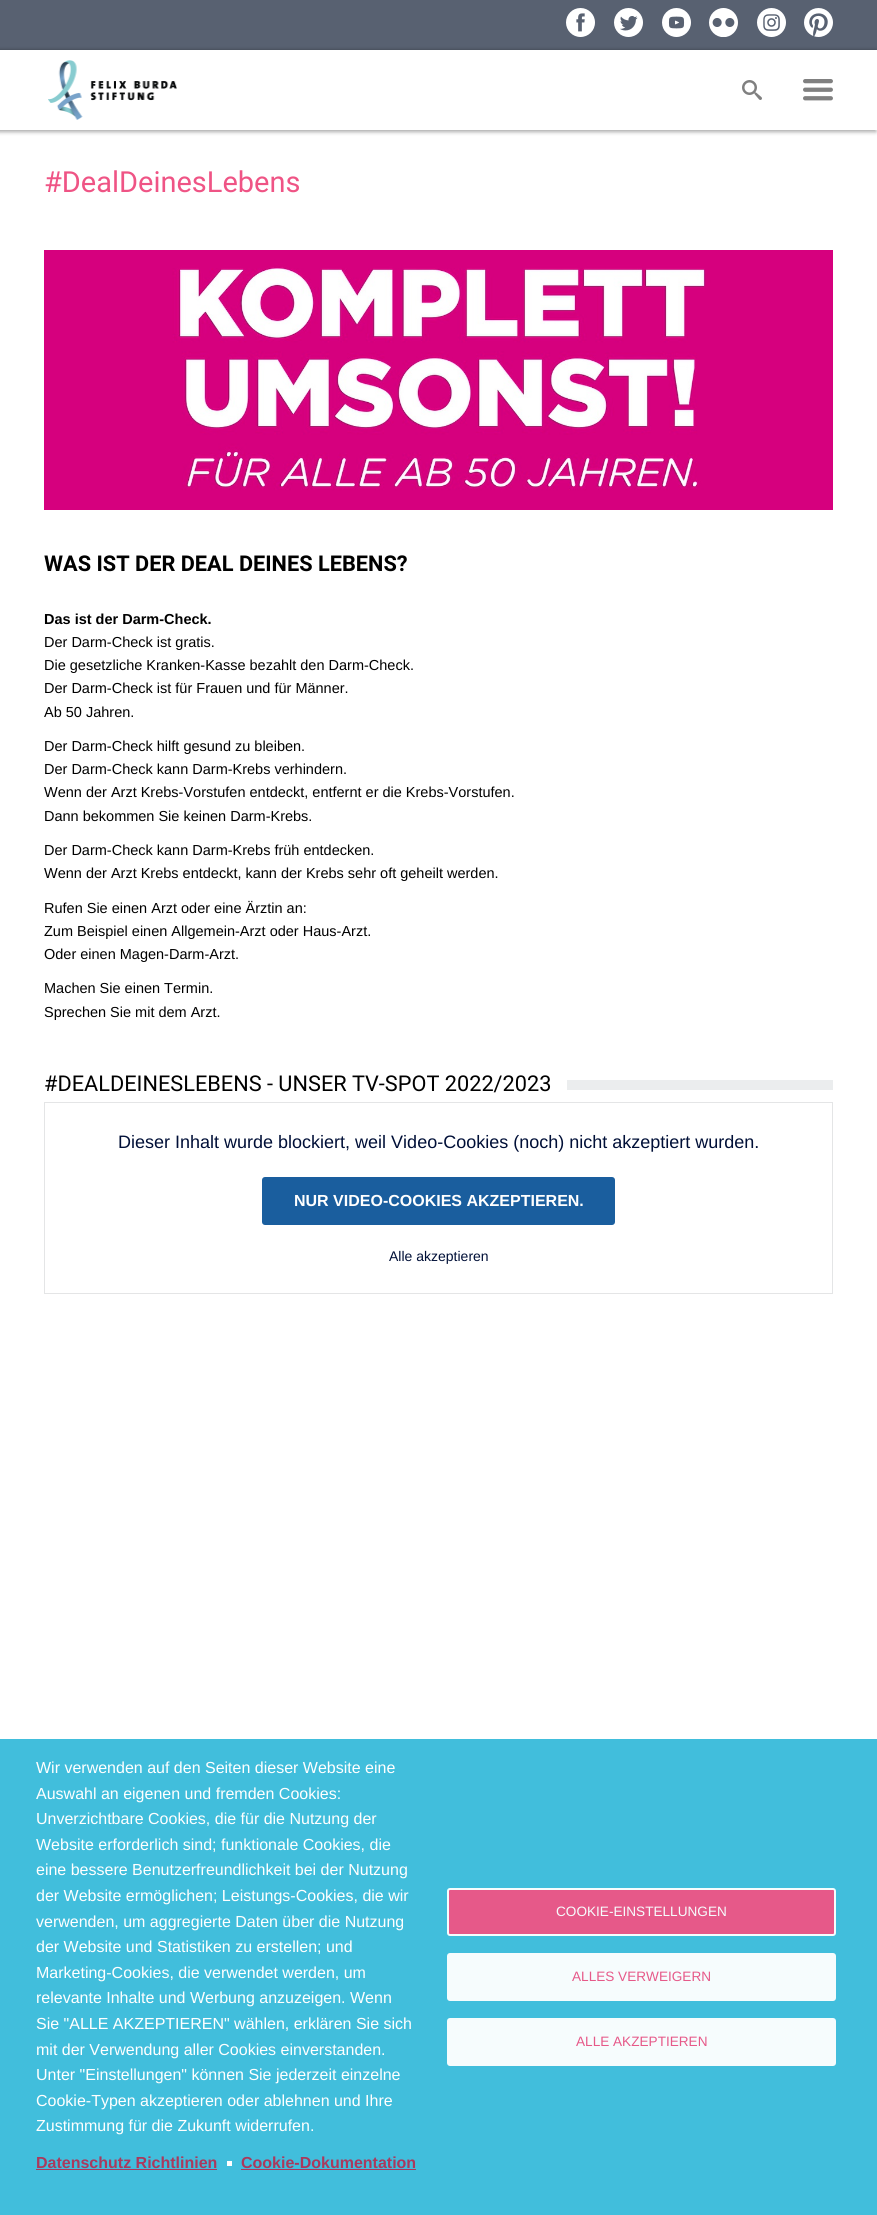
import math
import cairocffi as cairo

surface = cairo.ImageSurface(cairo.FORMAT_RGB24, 877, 2215)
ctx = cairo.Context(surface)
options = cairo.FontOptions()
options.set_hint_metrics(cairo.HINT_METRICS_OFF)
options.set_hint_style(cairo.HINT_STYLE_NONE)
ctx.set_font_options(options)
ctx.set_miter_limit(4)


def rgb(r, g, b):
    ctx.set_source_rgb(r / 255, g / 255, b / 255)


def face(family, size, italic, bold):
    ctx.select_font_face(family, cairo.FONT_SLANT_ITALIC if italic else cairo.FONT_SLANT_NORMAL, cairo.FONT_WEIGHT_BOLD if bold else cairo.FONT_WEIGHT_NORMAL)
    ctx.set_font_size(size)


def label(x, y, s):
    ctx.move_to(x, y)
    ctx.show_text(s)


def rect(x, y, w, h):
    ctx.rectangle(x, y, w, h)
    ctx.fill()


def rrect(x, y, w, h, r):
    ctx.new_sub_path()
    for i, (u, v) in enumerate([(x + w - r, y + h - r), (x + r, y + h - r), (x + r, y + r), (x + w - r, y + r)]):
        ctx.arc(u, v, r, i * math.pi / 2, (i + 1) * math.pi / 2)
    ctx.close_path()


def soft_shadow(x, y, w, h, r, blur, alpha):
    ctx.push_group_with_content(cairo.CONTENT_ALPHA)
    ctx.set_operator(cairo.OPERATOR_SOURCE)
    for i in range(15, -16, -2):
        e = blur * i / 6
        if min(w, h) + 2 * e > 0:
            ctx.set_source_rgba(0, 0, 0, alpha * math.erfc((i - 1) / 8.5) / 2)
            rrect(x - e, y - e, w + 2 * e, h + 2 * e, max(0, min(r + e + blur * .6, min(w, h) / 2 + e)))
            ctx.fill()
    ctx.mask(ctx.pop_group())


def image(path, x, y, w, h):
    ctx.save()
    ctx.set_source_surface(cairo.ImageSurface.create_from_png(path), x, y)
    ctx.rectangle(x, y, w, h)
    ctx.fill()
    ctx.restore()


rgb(255, 255, 255)
ctx.paint()
rgb(88, 97, 113)
rect(0, 0, 877, 50)
image('image0.png', 566, 8, 29, 29)
image('image1.png', 614, 8, 29, 29)
image('image2.png', 662, 8, 29, 29)
image('image3.png', 709, 8, 29, 29)
image('image4.png', 757, 8, 29, 29)
image('image5.png', 804, 8, 29, 29)
ctx.save()
ctx.set_fill_rule(cairo.FILL_RULE_EVEN_ODD)
ctx.new_path()
ctx.move_to(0, 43)
ctx.line_to(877, 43)
ctx.line_to(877, 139)
ctx.line_to(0, 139)
ctx.close_path()
ctx.move_to(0, 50)
ctx.line_to(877, 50)
ctx.line_to(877, 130)
ctx.line_to(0, 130)
ctx.close_path()
ctx.clip()
rgb(0, 0, 0)
soft_shadow(-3, 50, 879, 82, 0, 2, 0.33)
ctx.restore()
image('image6.png', 48, 60, 129, 60)
image('image7.png', 742, 80, 20, 20)
image('image8.png', 803, 79, 30, 22)
face('Roboto', 29, 0, 0)
rgb(239, 84, 133)
label(44, 192, '#DealDeinesLebens')
image('image9.png', 44, 250, 789, 260)
face('Roboto', 21.75, 0, 1)
rgb(0, 0, 0)
label(44, 571, 'WAS IST DER DEAL DEINES LEBENS?')
face('Liberation Sans', 14.5, 0, 1)
label(44, 624, 'Das ist der Darm-Check.')
face('Liberation Sans', 14.5, 0, 0)
label(44, 647, 'Der Darm-Check ist gratis.')
label(44, 670, 'Die gesetzliche Kranken-Kasse bezahlt den Darm-Check.')
label(44, 693, 'Der Darm-Check ist für Frauen und für Männer.')
label(44, 717, 'Ab 50 Jahren.')
label(44, 751, 'Der Darm-Check hilft gesund zu bleiben.')
label(44, 774, 'Der Darm-Check kann Darm-Krebs verhindern.')
label(44, 797, 'Wenn der Arzt Krebs-Vorstufen entdeckt, entfernt er die Krebs-Vorstufen.')
label(44, 821, 'Dann bekommen Sie keinen Darm-Krebs.')
label(44, 855, 'Der Darm-Check kann Darm-Krebs früh entdecken.')
label(44, 878, 'Wenn der Arzt Krebs entdeckt, kann der Krebs sehr oft geheilt werden.')
label(44, 913, 'Rufen Sie einen Arzt oder eine Ärztin an:')
label(44, 936, 'Zum Beispiel einen Allgemein-Arzt oder Haus-Arzt.')
label(44, 959, 'Oder einen Magen-Darm-Arzt.')
label(44, 993, 'Machen Sie einen Termin.')
label(44, 1017, 'Sprechen Sie mit dem Arzt.')
face('Roboto', 21.75, 0, 0)
label(44, 1091, '#DEALDEINESLEBENS - UNSER TV-SPOT 2022/2023')
rgb(235, 237, 238)
rect(567, 1080, 266, 10)
ctx.rectangle(44.5, 1102.5, 788, 191)
rgb(228, 229, 230)
ctx.set_line_width(1)
ctx.stroke()
face('Liberation Sans', 18, 0, 0)
rgb(0, 15, 55)
label(118, 1148, 'Dieser Inhalt wurde blockiert, weil Video-Cookies (noch) nicht akzeptiert wurden.')
rgb(26, 94, 158)
rrect(262, 1177, 353, 48, 3)
ctx.fill()
face('Liberation Sans', 16, 0, 1)
rgb(255, 255, 255)
label(294, 1206, 'NUR VIDEO-COOKIES AKZEPTIEREN.')
face('Liberation Sans', 14, 0, 0)
rgb(0, 15, 55)
label(389, 1261, 'Alle akzeptieren')
rgb(65, 190, 220)
rect(0, 1739, 877, 476)
face('Liberation Sans', 16, 0, 0)
rgb(255, 255, 255)
label(36, 1773, 'Wir verwenden auf den Seiten dieser Website eine')
label(36, 1799, 'Auswahl an eigenen und fremden Cookies:')
label(36, 1824, 'Unverzichtbare Cookies, die für die Nutzung der')
label(36, 1850, 'Website erforderlich sind; funktionale Cookies, die')
label(36, 1875, 'eine bessere Benutzerfreundlichkeit bei der Nutzung')
label(36, 1901, 'der Website ermöglichen; Leistungs-Cookies, die wir')
label(36, 1927, 'verwenden, um aggregierte Daten über die Nutzung')
label(36, 1952, 'der Website und Statistiken zu erstellen; und')
label(36, 1978, 'Marketing-Cookies, die verwendet werden, um')
label(36, 2003, 'relevante Inhalte und Werbung anzuzeigen. Wenn')
label(36, 2029, 'Sie "ALLE AKZEPTIEREN" wählen, erklären Sie sich')
label(36, 2055, 'mit der Verwendung aller Cookies einverstanden.')
label(36, 2080, 'Unter "Einstellungen" können Sie jederzeit einzelne')
label(36, 2106, 'Cookie-Typen akzeptieren oder ablehnen und Ihre')
label(36, 2131, 'Zustimmung für die Zukunft widerrufen.')
face('Liberation Sans', 16, 0, 1)
rgb(170, 57, 93)
label(36, 2168, 'Datenschutz Richtlinien')
rect(36, 2169, 181, 1)
rgb(255, 255, 255)
rect(227, 2161, 5, 5)
rgb(170, 57, 93)
label(241, 2168, 'Cookie-Dokumentation')
rect(241, 2169, 175, 1)
rgb(230, 89, 137)
rrect(448, 1889, 387, 46, 2)
ctx.fill_preserve()
rgb(246, 252, 253)
ctx.set_line_width(2)
ctx.stroke()
face('Liberation Sans', 13.6, 0, 0)
label(556, 1916, 'COOKIE-EINSTELLUNGEN')
rrect(448, 1954, 387, 46, 2)
ctx.fill_preserve()
ctx.stroke()
rgb(230, 89, 137)
label(572, 1981, 'ALLES VERWEIGERN')
rgb(246, 252, 253)
rrect(448, 2019, 387, 46, 2)
ctx.fill_preserve()
ctx.stroke()
rgb(230, 89, 137)
label(576, 2046, 'ALLE AKZEPTIEREN')
surface.write_to_png('render.png')
